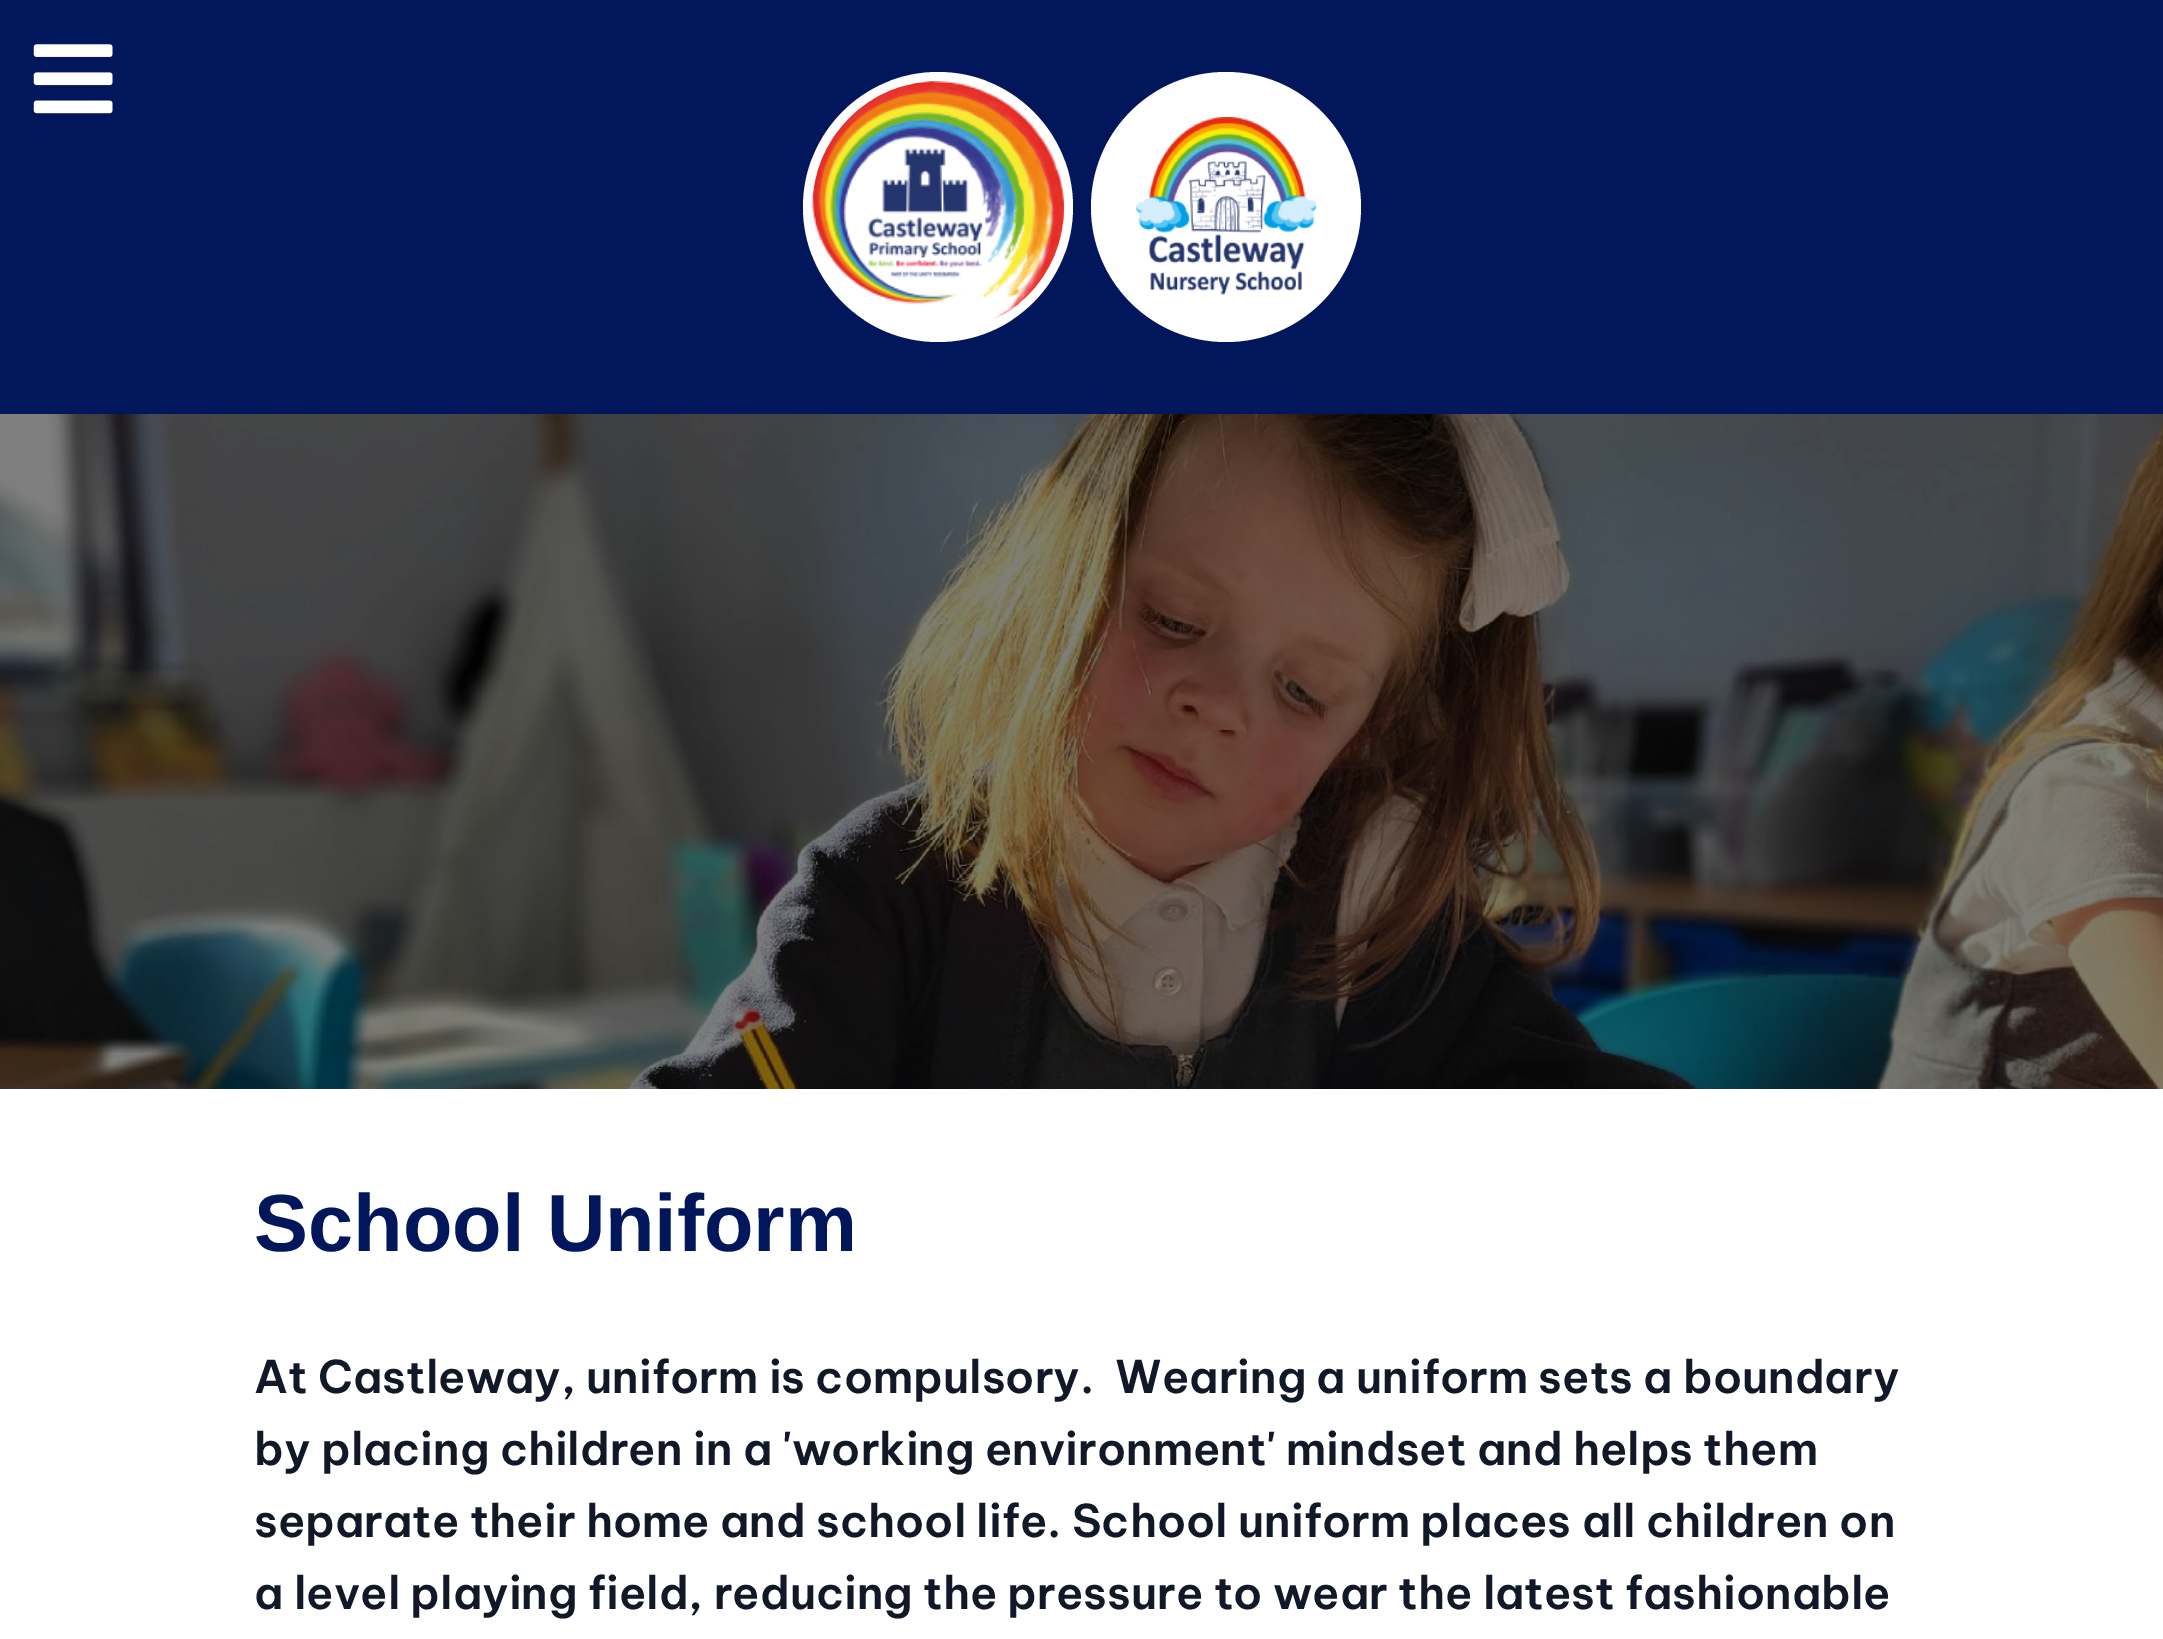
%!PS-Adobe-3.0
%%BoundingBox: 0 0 2163 1639
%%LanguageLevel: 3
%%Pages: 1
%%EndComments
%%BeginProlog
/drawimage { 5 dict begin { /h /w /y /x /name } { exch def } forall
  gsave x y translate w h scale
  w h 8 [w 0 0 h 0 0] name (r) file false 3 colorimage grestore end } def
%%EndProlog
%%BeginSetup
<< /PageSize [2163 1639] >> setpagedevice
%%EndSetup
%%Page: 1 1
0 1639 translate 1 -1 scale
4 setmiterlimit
1 setgray
0 0 2163 1639 rectfill
0.008 0.086 0.361 setrgbcolor
0 0 2163 414 rectfill
(images/1.raw) 33 44 80 70 drawimage
1 setgray
newpath 938 207 135 0 360 arc closepath fill
(images/2.raw) 812 81 253 239 drawimage
newpath 1226 207 135 0 360 arc closepath fill
(images/3.raw) 1136 117 181 178 drawimage
(images/4.raw) 0 414 2163 675 drawimage
/LiberationSans-Bold [81 0 0 -81 0 0] selectfont
0.008 0.086 0.361 setrgbcolor
254 1251 moveto (School Uniform) show
/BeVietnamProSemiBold-SemiBold [45 0 0 -45 0 0] selectfont
0.067 0.094 0.153 setrgbcolor
254 1393 moveto (At Castleway, uniform is compulsory.  Wearing a uniform sets a boundary) show
254 1465 moveto (by placing children in a 'working environment' mindset and helps them) show
254 1537 moveto (separate their home and school life. School uniform places all children on) show
254 1609 moveto (a level playing field, reducing the pressure to wear the latest fashionable) show
showpage
%%EOF
